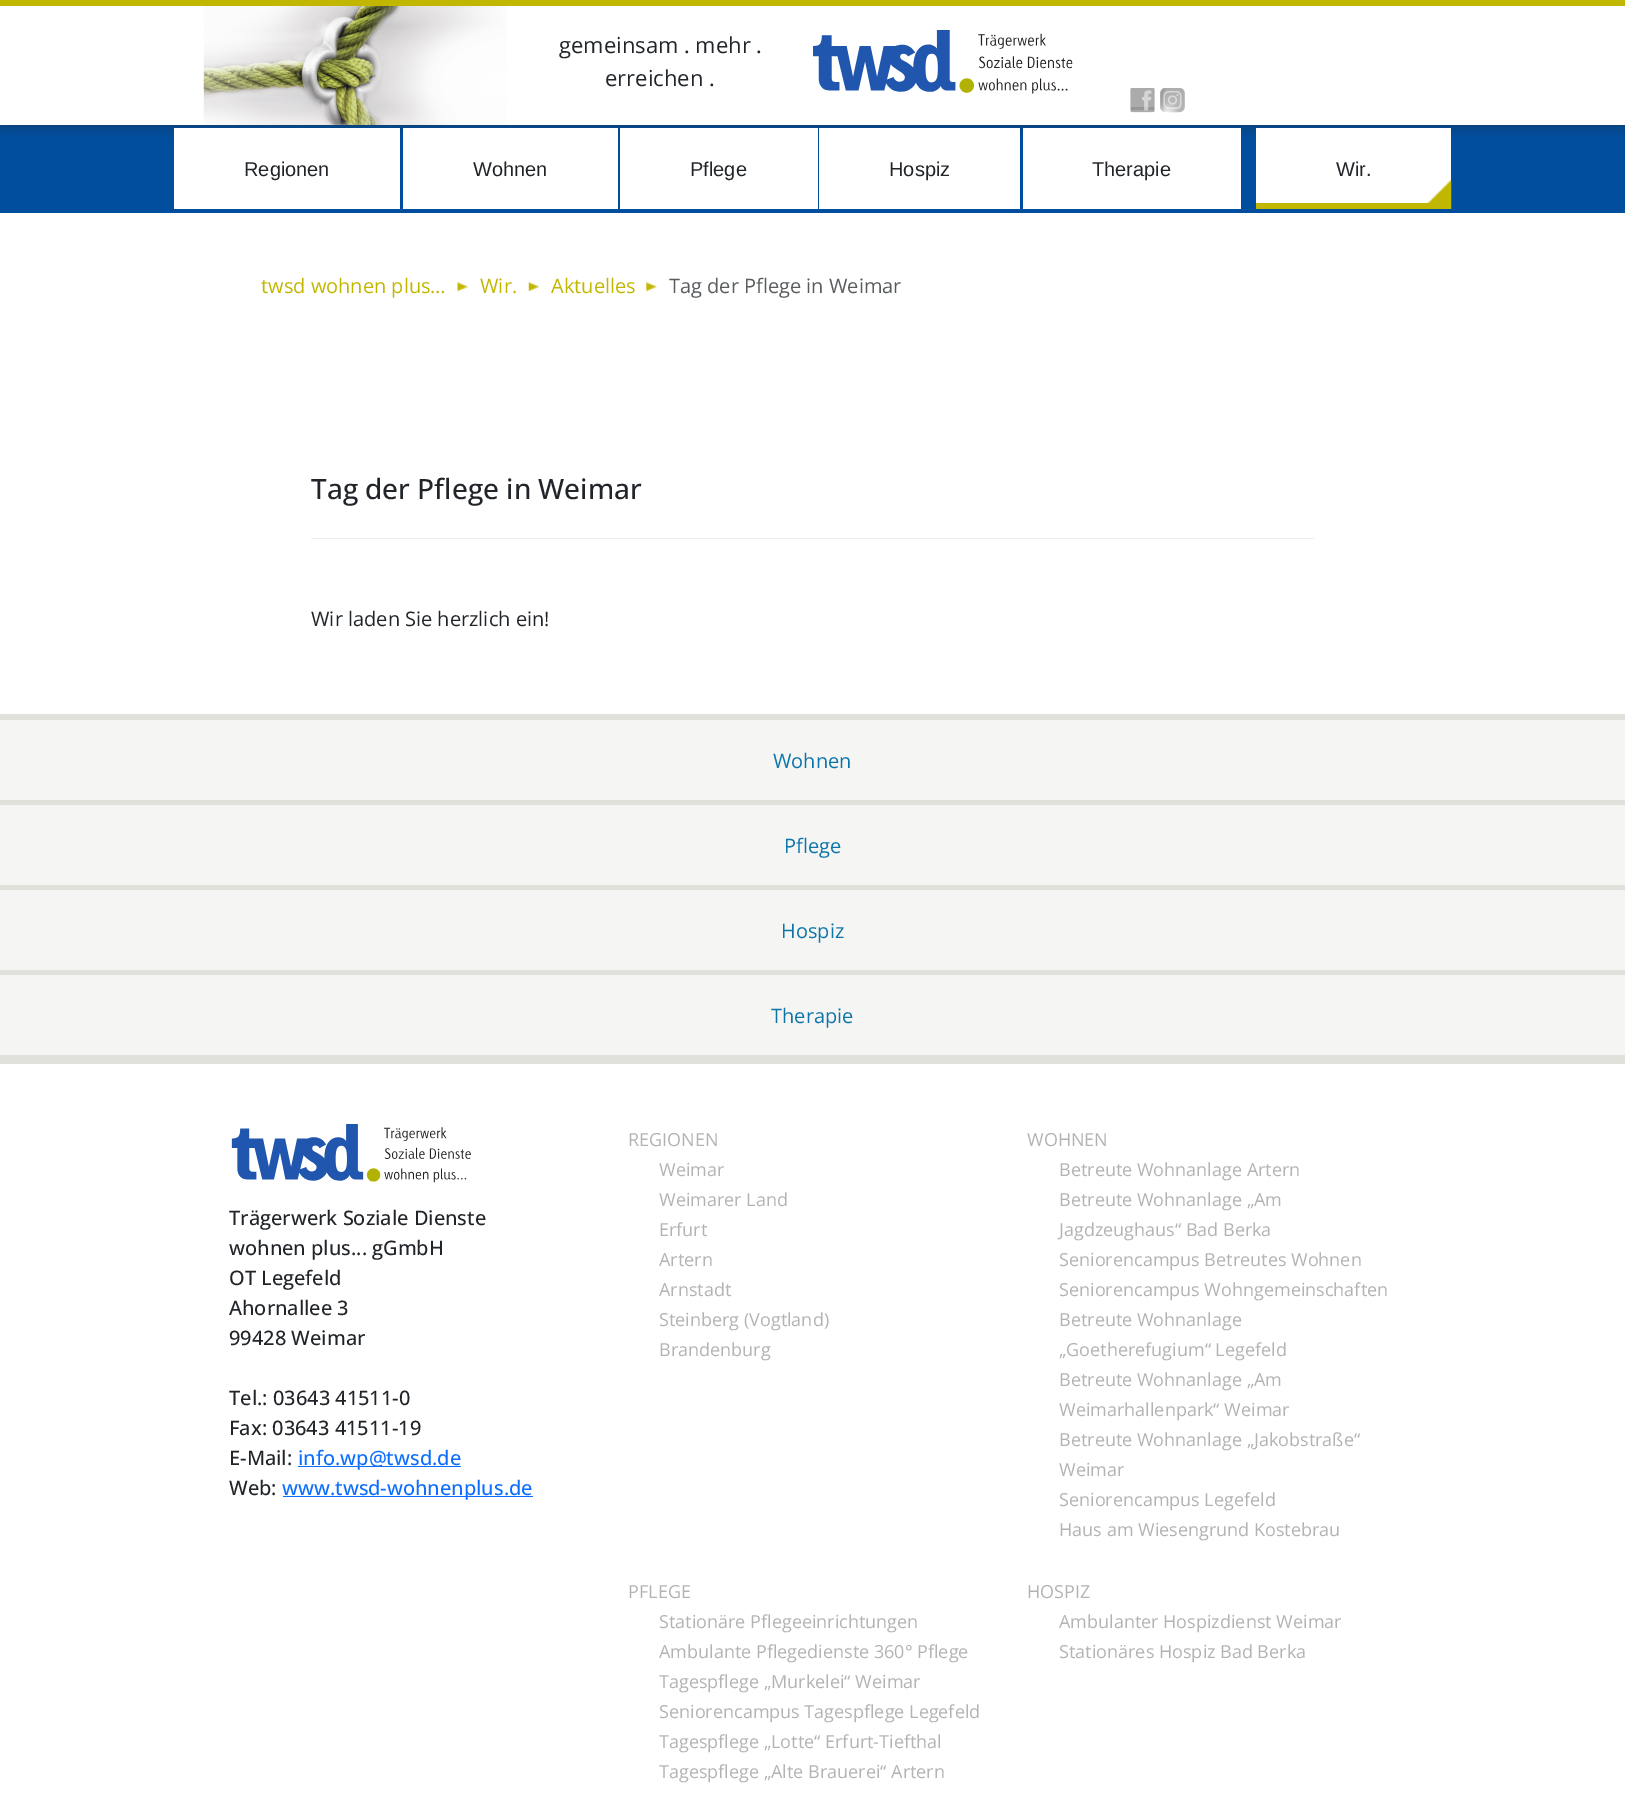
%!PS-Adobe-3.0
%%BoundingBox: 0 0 1625 1794
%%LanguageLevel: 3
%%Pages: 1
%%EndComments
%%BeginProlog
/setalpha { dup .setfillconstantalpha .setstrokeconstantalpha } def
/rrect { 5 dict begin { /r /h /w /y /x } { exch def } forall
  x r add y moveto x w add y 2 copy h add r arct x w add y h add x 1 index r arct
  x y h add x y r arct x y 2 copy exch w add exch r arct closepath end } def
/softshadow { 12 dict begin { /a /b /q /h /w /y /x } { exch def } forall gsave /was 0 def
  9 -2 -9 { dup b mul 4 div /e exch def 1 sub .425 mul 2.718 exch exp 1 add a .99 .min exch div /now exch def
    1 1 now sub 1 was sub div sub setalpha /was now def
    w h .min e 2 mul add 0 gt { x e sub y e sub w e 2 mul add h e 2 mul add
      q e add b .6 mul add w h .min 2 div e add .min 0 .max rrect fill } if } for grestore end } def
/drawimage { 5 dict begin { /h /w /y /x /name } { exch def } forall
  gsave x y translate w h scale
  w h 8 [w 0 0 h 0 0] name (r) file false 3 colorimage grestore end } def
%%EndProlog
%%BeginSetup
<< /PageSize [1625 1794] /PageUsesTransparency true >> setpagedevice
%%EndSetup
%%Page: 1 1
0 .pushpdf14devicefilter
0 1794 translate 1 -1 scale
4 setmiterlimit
1 setgray
0 0 1625 1794 rectfill
0.004 0.306 0.624 setrgbcolor
0 125 1625 88 rectfill
gsave
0 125 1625 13 rectclip
0.149 setgray
0 -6 1625 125 0 9.5 1 softshadow
grestore
0.757 0.714 0 setrgbcolor
0 0 1625 6 rectfill
(images/1.raw) 203 6 304 119 drawimage
(images/2.raw) 813 30 260 64 drawimage
(images/3.raw) 1130 88 25 25 drawimage
(images/4.raw) 1160 88 25 25 drawimage
1 setgray
174 128 226 81 rectfill
403 128 215 81 rectfill
620 128 198 81 rectfill
819 128 201 81 rectfill
1023 128 218 81 rectfill
1256 128 195 75 rectfill
(images/5.raw) 1427 180 25 29 drawimage
0.757 0.714 0 setrgbcolor
1256 203 195 6 rectfill
(images/6.raw) 457 282 12 10 drawimage
(images/7.raw) 528 282 12 10 drawimage
(images/8.raw) 646 282 11 10 drawimage
0.933 setgray
311 538 1003 1 rectfill
0.878 0.882 0.855 setrgbcolor
0 714 1625 6 rectfill
0 1055 1625 9 rectfill
0 800 1625 5 rectfill
0.961 0.961 0.953 setrgbcolor
0 720 1625 80 rectfill
0.878 0.882 0.855 setrgbcolor
0 885 1625 5 rectfill
0.961 0.961 0.953 setrgbcolor
0 805 1625 80 rectfill
0.878 0.882 0.855 setrgbcolor
0 970 1625 5 rectfill
0.961 0.961 0.953 setrgbcolor
0 890 1625 80 rectfill
0 975 1625 80 rectfill
(images/9.raw) 231 1124 240 59 drawimage
0.051 0.431 0.992 setrgbcolor
298 1466 163 1 rectfill
283 1496 250 1 rectfill
/OpenSans-Regular [22 0 0 -22 0 0] selectfont
0.129 0.145 0.161 setrgbcolor
559 53 moveto (gemeinsam . mehr .) show
605 86 moveto (erreichen .) show
/LiberationSans-Regular [20 0 0 -20 0 0] selectfont
244 176 moveto (Regionen) show
473 176 moveto (Wohnen) show
690 176 moveto (Pflege) show
889 176 moveto (Hospiz) show
1092 176 moveto (Therapie) show
1336 176 moveto (Wir.) show
/OpenSans-Regular [20 0 0 -20 0 0] selectfont
0.757 0.714 0 setrgbcolor
261 293 moveto (twsd wohnen plus…) show
480 293 moveto (Wir.) show
551 293 moveto (Aktuelles) show
0.349 0.361 0.373 setrgbcolor
669 293 moveto (Tag der Pflege in Weimar) show
/OpenSans-Medium [28 0 0 -28 0 0] selectfont
0.129 0.145 0.161 setrgbcolor
311 499 moveto (Tag der Pflege in Weimar) show
/OpenSans-Regular [20 0 0 -20 0 0] selectfont
311 626 moveto (Wir laden Sie herzlich ein!) show
0.051 0.459 0.663 setrgbcolor
773 768 moveto (Wohnen) show
784 853 moveto (Pflege) show
781 938 moveto (Hospiz) show
771 1023 moveto (Therapie) show
/OpenSans-Medium [20 0 0 -20 0 0] selectfont
0.129 0.145 0.161 setrgbcolor
229 1225 moveto (Trägerwerk Soziale Dienste) show
229 1255 moveto (wohnen plus... gGmbH) show
229 1285 moveto (OT Legefeld) show
229 1315 moveto (Ahornallee 3) show
229 1345 moveto (99428 Weimar) show
229 1405 moveto (Tel.: 03643 41511-0) show
229 1435 moveto (Fax: 03643 41511-19) show
229 1465 moveto (E-Mail:) show
0.051 0.431 0.992 setrgbcolor
298 1465 moveto (info.wp@twsd.de) show
0.129 0.145 0.161 setrgbcolor
229 1495 moveto (Web:) show
0.051 0.431 0.992 setrgbcolor
282 1495 moveto (www.twsd-wohnenplus.de) show
/OpenSans-Regular [18 0 0 -18 0 0] selectfont
0.702 setgray
628 1146 moveto (REGIONEN) show
659 1176 moveto (Weimar) show
659 1206 moveto (Weimarer Land) show
659 1236 moveto (Erfurt) show
659 1266 moveto (Artern) show
659 1296 moveto (Arnstadt) show
659 1326 moveto (Steinberg \(Vogtland\)) show
659 1356 moveto (Brandenburg) show
1027 1146 moveto (WOHNEN) show
1059 1176 moveto (Betreute Wohnanlage Artern) show
1059 1206 moveto (Betreute Wohnanlage „Am) show
1059 1236 moveto (Jagdzeughaus“ Bad Berka) show
1059 1266 moveto (Seniorencampus Betreutes Wohnen) show
1059 1296 moveto (Seniorencampus Wohngemeinschaften) show
1059 1326 moveto (Betreute Wohnanlage) show
1059 1356 moveto („Goetherefugium“ Legefeld) show
1059 1386 moveto (Betreute Wohnanlage „Am) show
1059 1416 moveto (Weimarhallenpark“ Weimar) show
1059 1446 moveto (Betreute Wohnanlage „Jakobstraße“) show
1059 1476 moveto (Weimar) show
1059 1506 moveto (Seniorencampus Legefeld) show
1059 1536 moveto (Haus am Wiesengrund Kostebrau) show
628 1598 moveto (PFLEGE) show
659 1628 moveto (Stationäre Pflegeeinrichtungen) show
659 1658 moveto (Ambulante Pflegedienste 360° Pflege) show
659 1688 moveto (Tagespflege „Murkelei“ Weimar) show
659 1718 moveto (Seniorencampus Tagespflege Legefeld) show
659 1748 moveto (Tagespflege „Lotte“ Erfurt-Tiefthal) show
659 1778 moveto (Tagespflege „Alte Brauerei“ Artern) show
1027 1598 moveto (HOSPIZ) show
1059 1628 moveto (Ambulanter Hospizdienst Weimar) show
1059 1658 moveto (Stationäres Hospiz Bad Berka) show
.poppdf14devicefilter showpage
%%EOF
